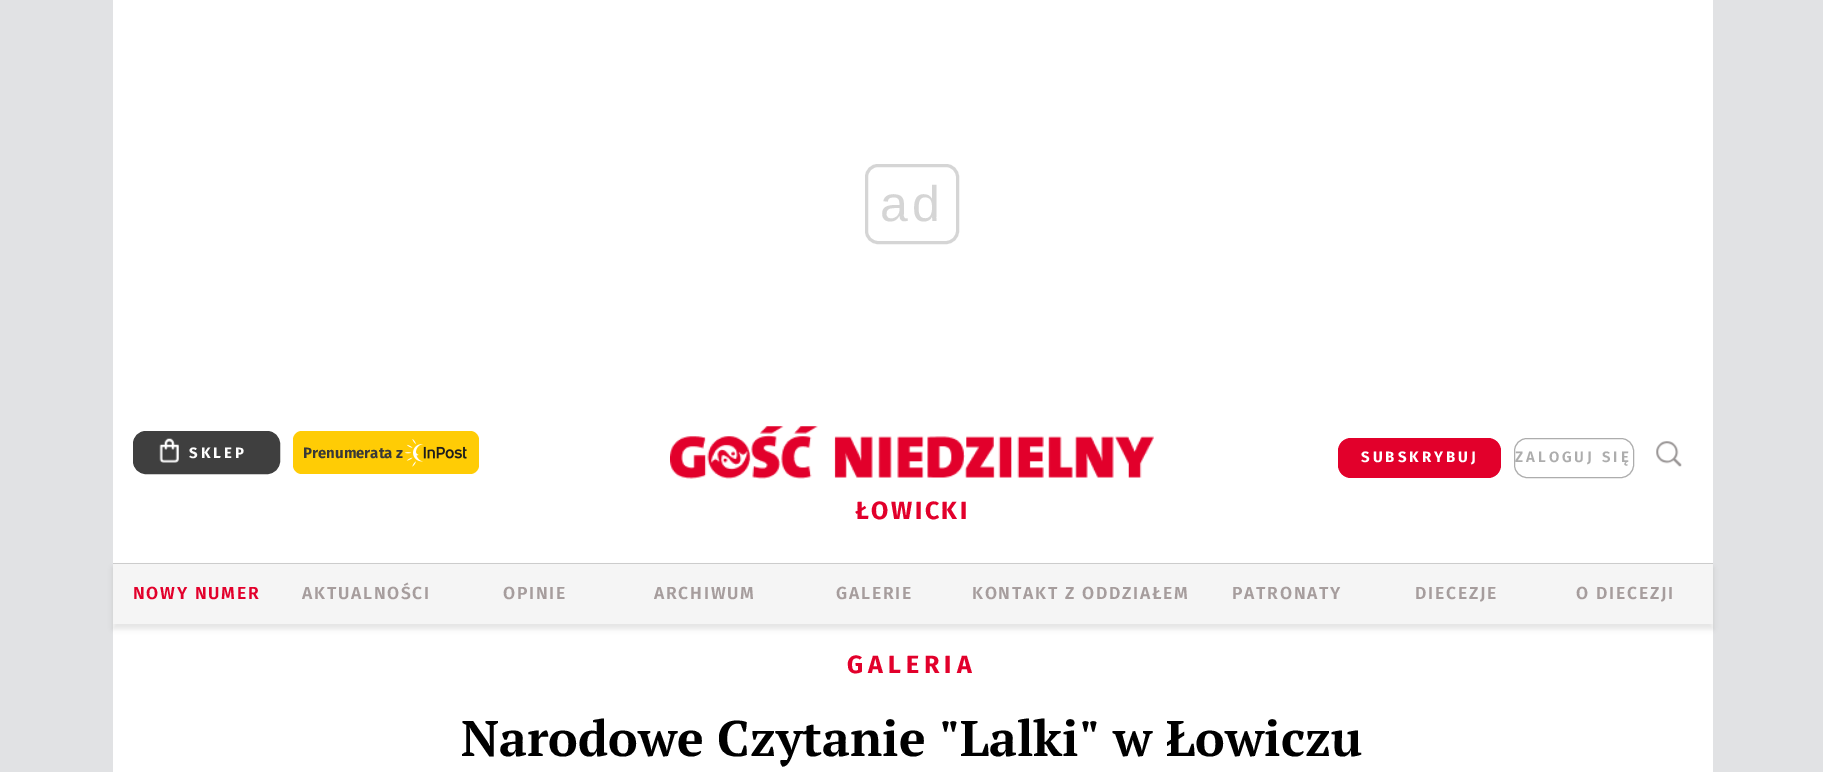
%!PS-Adobe-3.0
%%BoundingBox: 0 0 1823 772
%%LanguageLevel: 3
%%Pages: 1
%%EndComments
%%BeginProlog
/setalpha { dup .setfillconstantalpha .setstrokeconstantalpha } def
/rrect { 5 dict begin { /r /h /w /y /x } { exch def } forall
  x r add y moveto x w add y 2 copy h add r arct x w add y h add x 1 index r arct
  x y h add x y r arct x y 2 copy exch w add exch r arct closepath end } def
/softshadow { 12 dict begin { /a /b /q /h /w /y /x } { exch def } forall gsave /was 0 def
  9 -2 -9 { dup b mul 4 div /e exch def 1 sub .425 mul 2.718 exch exp 1 add a .99 .min exch div /now exch def
    1 1 now sub 1 was sub div sub setalpha /was now def
    w h .min e 2 mul add 0 gt { x e sub y e sub w e 2 mul add h e 2 mul add
      q e add b .6 mul add w h .min 2 div e add .min 0 .max rrect fill } if } for grestore end } def
/drawimage { 5 dict begin { /h /w /y /x /name } { exch def } forall
  gsave x y translate w h scale
  w h 8 [w 0 0 h 0 0] name (r) file false 3 colorimage grestore end } def
%%EndProlog
%%BeginSetup
<< /PageSize [1823 772] /PageUsesTransparency true >> setpagedevice
%%EndSetup
%%Page: 1 1
0 .pushpdf14devicefilter
0 772 translate 1 -1 scale
4 setmiterlimit
0.882 0.886 0.894 setrgbcolor
0 0 1823 772 rectfill
1 setgray
113 0 1600 406 rectfill
0.835 setgray
3 setlinewidth
866.5 165.5 91 77 11.5 rrect stroke
0.961 setgray
113 564 1600 60 rectfill
1 setgray
113 406 1600 157 rectfill
0.247 setgray
133.5 431.5 146 42 12.5 rrect gsave fill grestore
1 setlinewidth
stroke
(images/1.raw) 159 438 20 25 drawimage
1 0.8 0.02 setrgbcolor
293 431 186 43 9 rrect fill
(images/2.raw) 404 439 63 28 drawimage
0.886 0 0.169 setrgbcolor
1338 438 163 40 13 rrect fill
0.678 setgray
1514.5 438.5 119 39 12.5 rrect stroke
(images/3.raw) 1656 441 26 26 drawimage
(images/4.raw) 670 426 484 53 drawimage
1 setgray
113 624 1600 148 rectfill
gsave
newpath 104 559 moveto 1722 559 lineto 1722 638 lineto 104 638 lineto closepath 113 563 moveto 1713 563 lineto 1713 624 lineto 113 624 lineto closepath eoclip newpath
0 setgray
113 568 1600 61 0 2.5 0.1 softshadow
grestore
0.8 setgray
113 563 1600 1 rectfill
/LiberationSans-Regular [50 0 0 -50 0 0] selectfont
0.835 setgray
880 221 moveto 4 0 (ad) ashow
/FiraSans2-Bold [15 0 0 -15 0 0] selectfont
1 setgray
189 458 moveto 3 0 (SKLEP) ashow
/FiraSans-Bold [15 0 0 -15 0 0] selectfont
0.22 setgray
303 458 moveto (Prenumerata z) show
/FiraSans2-Bold [15 0 0 -15 0 0] selectfont
1 setgray
1361 462 moveto 3 0 (SUBSKRYBUJ) ashow
/FiraSans-SemiBold [15 0 0 -15 0 0] selectfont
0.678 setgray
1515 462 moveto 3 0 (ZALOGUJ SIĘ) ashow
/FiraSans2-Bold [25 0 0 -25 0 0] selectfont
0.886 0 0.169 setrgbcolor
855 519 moveto 2.5 0 (ŁOWICKI) ashow
/FiraSans-SemiBold [17.5 0 0 -17.5 0 0] selectfont
133 599 moveto 1.75 0 (NOWY NUMER) ashow
0.651 0.616 0.616 setrgbcolor
302 599 moveto 1.75 0 (AKTUALNOŚCI) ashow
503 599 moveto 1.75 0 (OPINIE) ashow
654 599 moveto 1.75 0 (ARCHIWUM) ashow
836 599 moveto 1.75 0 (GALERIE) ashow
972 599 moveto 1.75 0 (KONTAKT Z ODDZIAŁEM) ashow
1232 599 moveto 1.75 0 (PATRONATY) ashow
1415 599 moveto 1.75 0 (DIECEZJE) ashow
1576 599 moveto 1.75 0 (O DIECEZJI) ashow
/FiraSans-Bold [25 0 0 -25 0 0] selectfont
0.886 0 0.169 setrgbcolor
847 673 moveto 5 0 (GALERIA) ashow
/PTSerif-Bold [50 0 0 -50 0 0] selectfont
0 setgray
461 756 moveto (Narodowe Czytanie "Lalki" w Łowiczu) show
.poppdf14devicefilter showpage
%%EOF
